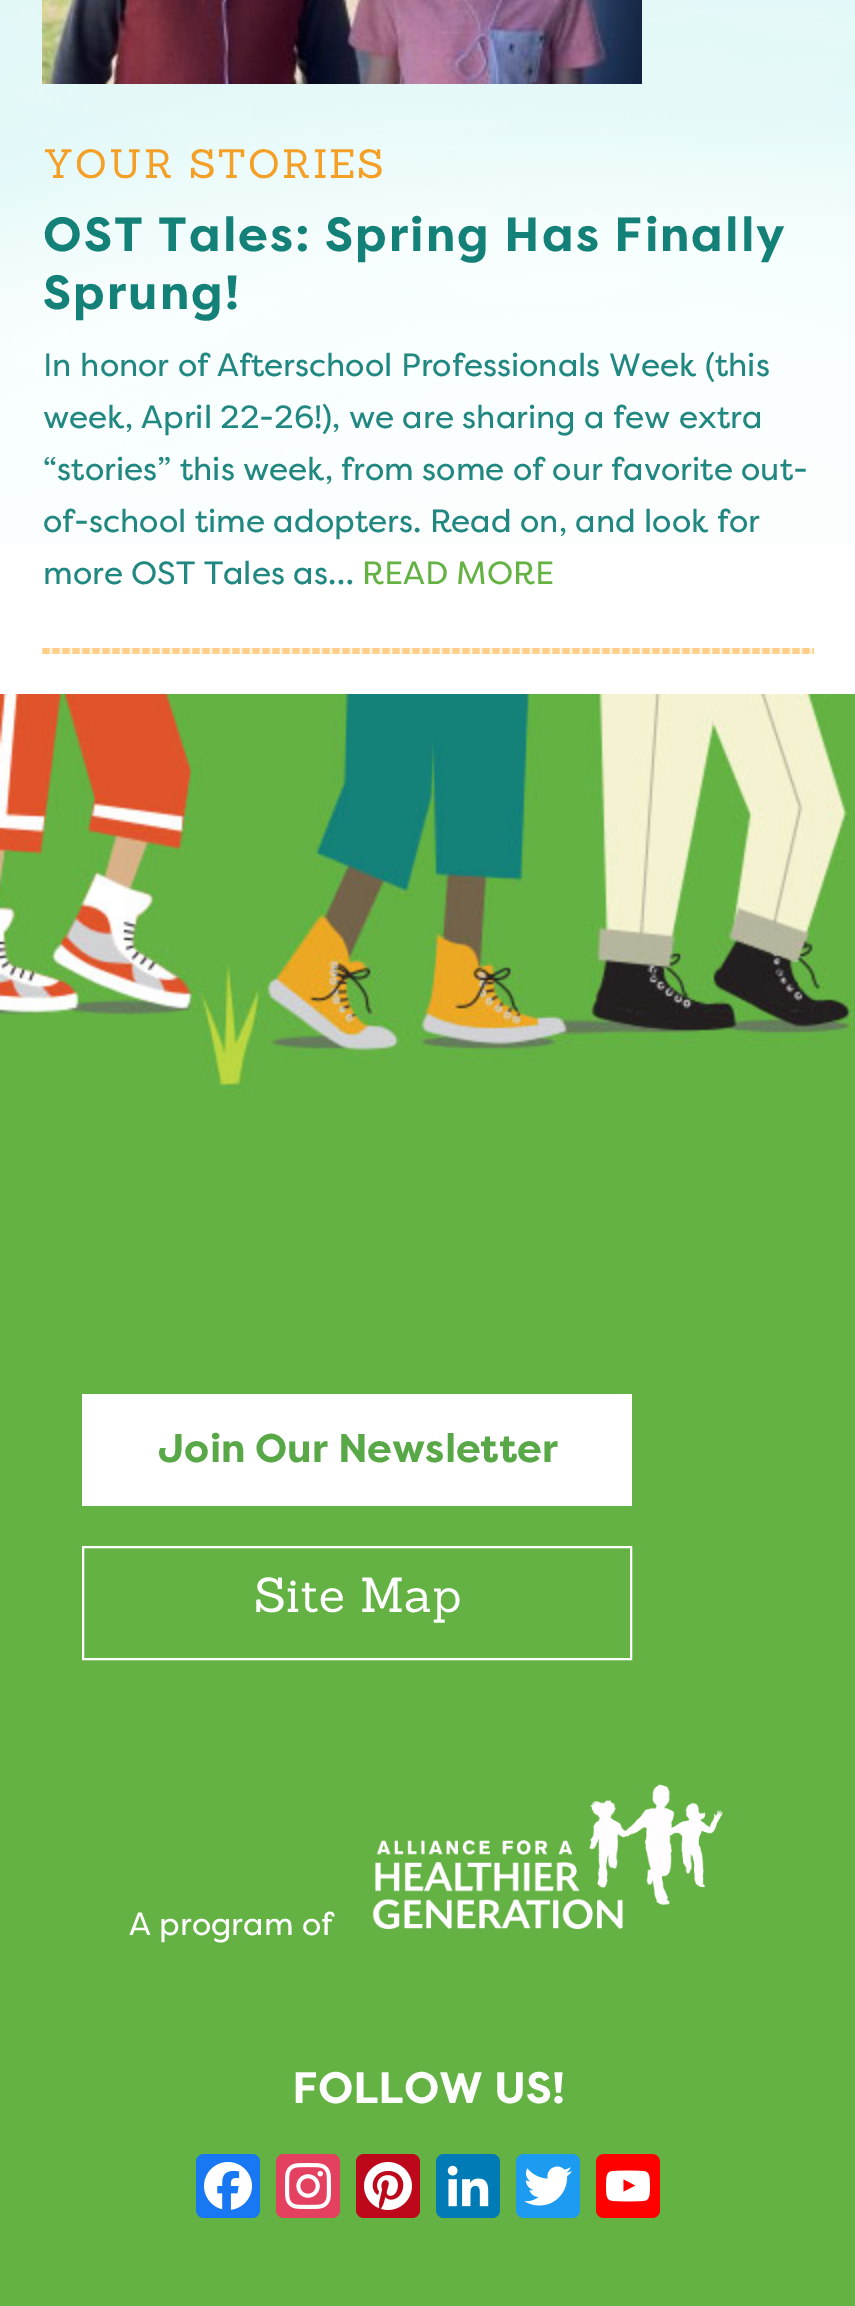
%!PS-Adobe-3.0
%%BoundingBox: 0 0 855 2306
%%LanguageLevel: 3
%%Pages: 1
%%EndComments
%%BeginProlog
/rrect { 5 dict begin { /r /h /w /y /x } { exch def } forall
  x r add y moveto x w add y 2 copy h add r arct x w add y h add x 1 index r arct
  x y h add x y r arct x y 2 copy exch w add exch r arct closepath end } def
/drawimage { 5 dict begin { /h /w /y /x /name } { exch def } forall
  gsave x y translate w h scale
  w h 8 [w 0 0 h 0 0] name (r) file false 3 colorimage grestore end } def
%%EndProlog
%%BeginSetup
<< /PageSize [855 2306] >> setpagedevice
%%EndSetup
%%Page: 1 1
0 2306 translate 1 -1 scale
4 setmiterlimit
1 setgray
0 0 855 2306 rectfill
(images/1.raw) 0 0 855 543 drawimage
(images/2.raw) 42 648 772 6 drawimage
(images/3.raw) 42 0 600 84 drawimage
0.392 0.698 0.263 setrgbcolor
0 1094 855 1212 rectfill
(images/4.raw) 0 694 855 400 drawimage
1 setgray
82 1394 550 112 rectfill
2 setlinewidth
83 1547 548 112 rectstroke
(images/5.raw) 372 1784 351 145 drawimage
0.094 0.467 0.949 setrgbcolor
196 2154 64 64 8 rrect fill
(images/6.raw) 204 2162 48 48 drawimage
0.894 0.251 0.373 setrgbcolor
276 2154 64 64 8 rrect fill
(images/7.raw) 285 2163 46 46 drawimage
0.741 0.031 0.11 setrgbcolor
356 2154 64 64 8 rrect fill
(images/8.raw) 364 2162 48 48 drawimage
0 0.482 0.71 setrgbcolor
436 2154 64 64 8 rrect fill
(images/9.raw) 447 2165 42 42 drawimage
0.114 0.608 0.941 setrgbcolor
516 2154 64 64 8 rrect fill
(images/10.raw) 524 2166 48 40 drawimage
1 0 0 setrgbcolor
596 2154 64 64 8 rrect fill
(images/11.raw) 606 2170 44 32 drawimage
/Sanchez-Regular [40 0 0 -40 0 0] selectfont
0.957 0.624 0.145 setrgbcolor
43 178 moveto 2 0 (YOUR STORIES) ashow
/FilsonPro-Bold [48 0 0 -48 0 0] selectfont
0.078 0.506 0.475 setrgbcolor
43 251 moveto 2 0 (OST Tales: Spring Has Finally) ashow
43 309 moveto 2 0 (Sprung!) ashow
/FilsonPro-Regular [32 0 0 -32 0 0] selectfont
0.125 0.529 0.506 setrgbcolor
43 376 moveto (In honor of Afterschool Professionals Week \(this) show
43 428 moveto (week, April 22-26!\), we are sharing a few extra) show
43 480 moveto (“stories” this week, from some of our favorite out-) show
43 532 moveto (of-school time adopters. Read on, and look for) show
43 584 moveto (more OST Tales as…) show
0.392 0.698 0.263 setrgbcolor
362 584 moveto (READ MORE) show
/FilsonPro-Bold [40 0 0 -40 0 0] selectfont
0.345 0.659 0.278 setrgbcolor
158 1462 moveto (Join Our Newsletter) show
/Sanchez-Regular [48 0 0 -48 0 0] selectfont
1 setgray
254 1612 moveto (Site Map) show
/FilsonPro-Regular [32 0 0 -32 0 0] selectfont
129 1935 moveto (A program of) show
/FilsonPro-Bold [44 0 0 -44 0 0] selectfont
292 2103 moveto (FOLLOW US!) show
showpage
%%EOF
